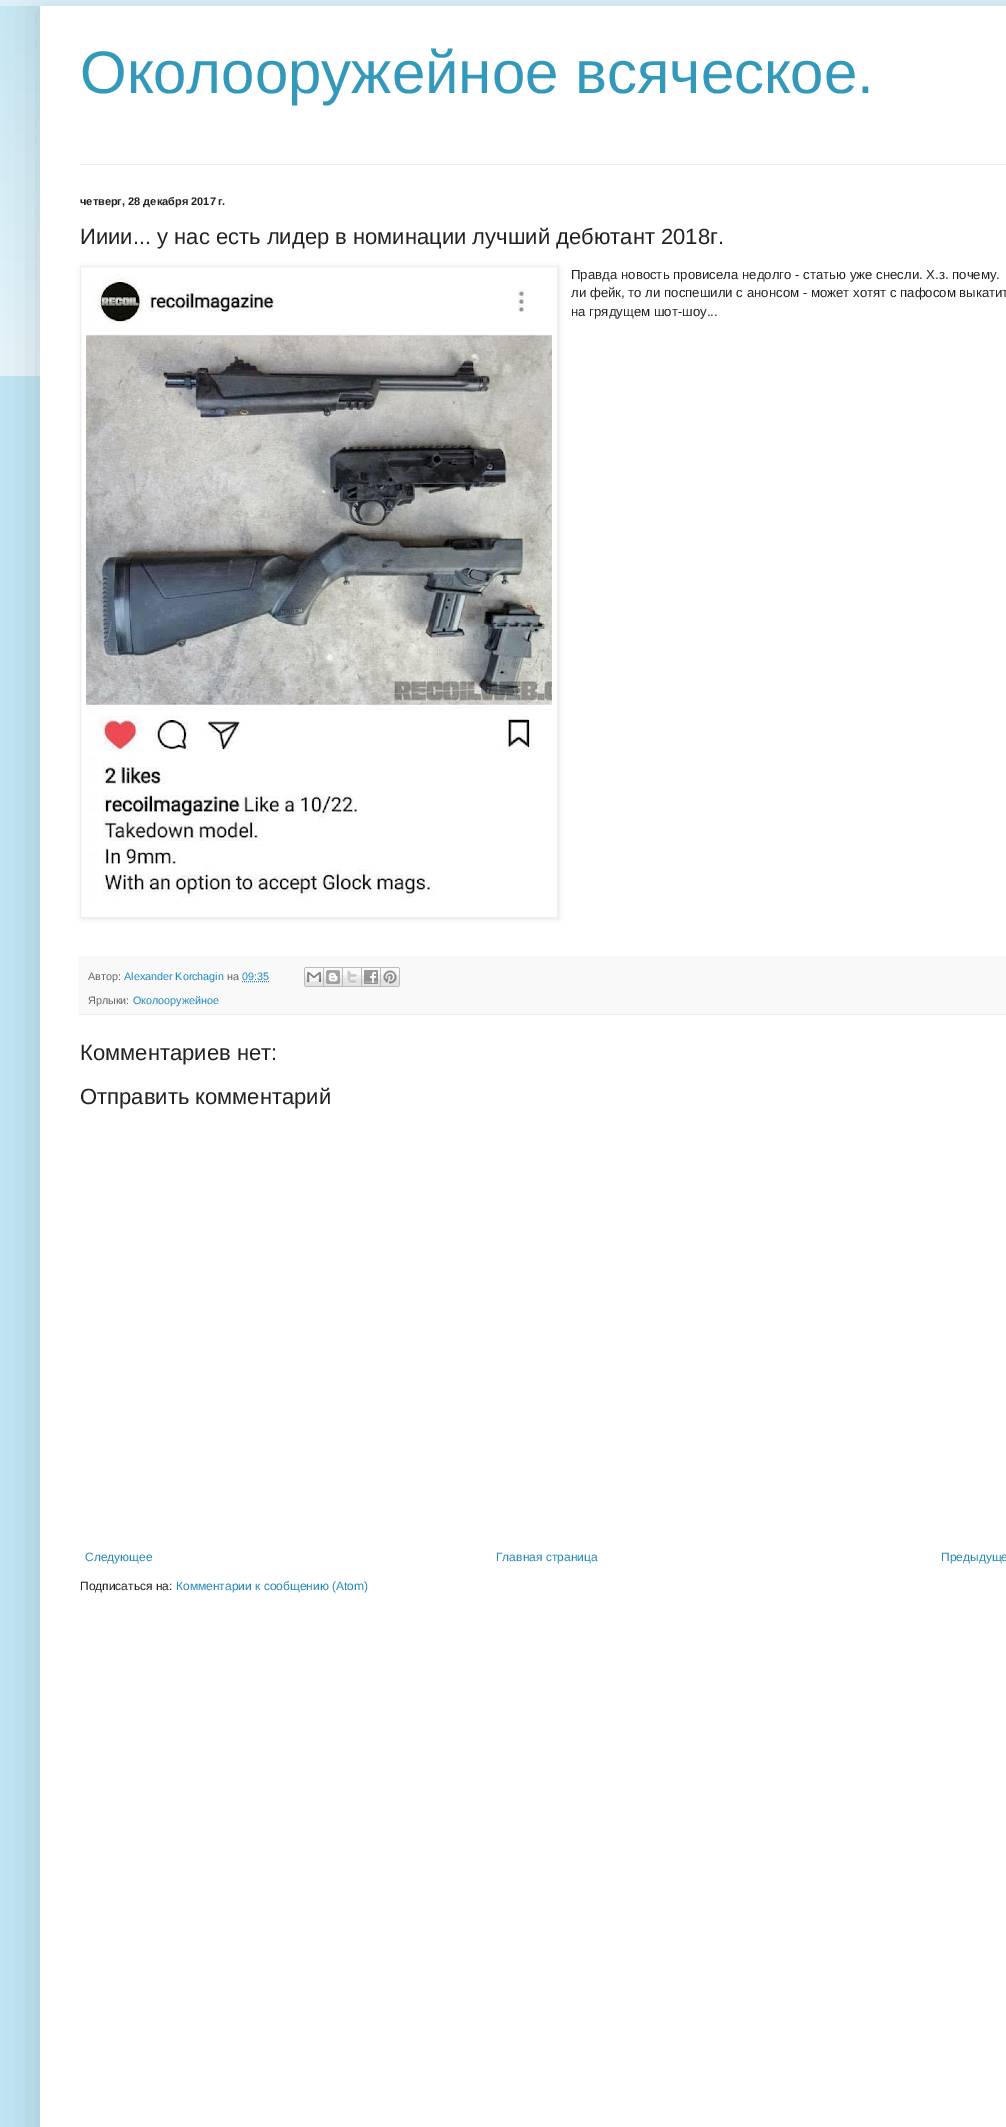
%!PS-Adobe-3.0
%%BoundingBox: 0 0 1006 2127
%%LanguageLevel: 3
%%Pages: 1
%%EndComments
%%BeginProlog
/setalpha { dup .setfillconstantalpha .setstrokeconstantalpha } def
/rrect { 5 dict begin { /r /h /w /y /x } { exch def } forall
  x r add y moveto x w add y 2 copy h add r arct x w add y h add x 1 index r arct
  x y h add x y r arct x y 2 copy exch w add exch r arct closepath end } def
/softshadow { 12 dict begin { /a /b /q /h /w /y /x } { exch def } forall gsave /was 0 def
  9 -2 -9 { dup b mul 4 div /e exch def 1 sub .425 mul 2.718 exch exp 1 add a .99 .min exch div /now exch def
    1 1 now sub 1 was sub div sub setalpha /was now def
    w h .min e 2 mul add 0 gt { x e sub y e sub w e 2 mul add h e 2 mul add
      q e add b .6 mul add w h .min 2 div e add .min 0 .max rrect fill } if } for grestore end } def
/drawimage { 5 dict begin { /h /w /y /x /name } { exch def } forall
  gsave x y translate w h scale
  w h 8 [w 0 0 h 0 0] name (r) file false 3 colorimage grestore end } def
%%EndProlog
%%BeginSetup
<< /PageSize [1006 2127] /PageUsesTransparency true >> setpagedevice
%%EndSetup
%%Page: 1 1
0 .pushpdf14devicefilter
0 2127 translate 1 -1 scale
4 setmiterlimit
0.757 0.898 0.949 setrgbcolor
0 0 1006 2127 rectfill
(images/1.raw) 0 0 1006 376 drawimage
0 setgray
40 6 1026 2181 0 20 0.15 softshadow
0.4 setalpha
1 setgray
0 0 1006 6 rectfill
1 setalpha
40 6 966 2121 rectfill
0.933 setgray
80 164 926 1 rectfill
gsave
newpath 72 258 moveto 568 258 lineto 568 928 lineto 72 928 lineto closepath 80 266 moveto 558 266 lineto 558 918 lineto 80 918 lineto closepath eoclip newpath
0 setgray
81 267 478 652 0 2.5 0.1 softshadow
grestore
80.5 266.5 477 651 rectstroke
(images/2.raw) 86 274 466 624 drawimage
0.976 setgray
78 956 928 58 rectfill
0.933 setgray
78 1014 928 1 rectfill
0.133 0.533 0.733 setrgbcolor
[1 1] 0 setdash
newpath 242 981.5 moveto 269 981.5 lineto stroke
(images/3.raw) 304 967 20 20 drawimage
(images/4.raw) 324 967 19 20 drawimage
(images/5.raw) 343 967 19 20 drawimage
(images/6.raw) 362 967 19 20 drawimage
(images/7.raw) 381 967 19 20 drawimage
/LiberationSans-Regular [60 0 0 -60 0 0] selectfont
0.2 0.6 0.733 setrgbcolor
80 93 moveto (Околооружейное всяческое.) show
/LiberationSans-Bold [11 0 0 -11 0 0] selectfont
0.133 setgray
80 205 moveto (четверг, 28 декабря 2017 г.) show
/LiberationSans-Regular [22 0 0 -22 0 0] selectfont
80 244 moveto (Ииии... у нас есть лидер в номинации лучший дебютант 2018г.) show
/LiberationSans-Regular [13.2 0 0 -13.2 0 0] selectfont
571 279 moveto (Правда новость провисела недолго - статью уже снесли. Х.з. почему.) show
571 297 moveto (ли фейк, то ли поспешили с анонсом - может хотят с пафосом выкатит) show
571 316 moveto (на грядущем шот-шоу...) show
/LiberationSans-Regular [10.75 0 0 -10.75 0 0] selectfont
0.4 setgray
88 980 moveto (Автор:) show
0.133 0.533 0.733 setrgbcolor
124 980 moveto (Alexander Korchagin) show
0.4 setgray
227 980 moveto (на) show
0.133 0.533 0.733 setrgbcolor
242 980 moveto (09:35) show
0.4 setgray
88 1004 moveto (Ярлыки:) show
0.133 0.533 0.733 setrgbcolor
133 1004 moveto (Околооружейное) show
/LiberationSans-Regular [22 0 0 -22 0 0] selectfont
0.133 setgray
80 1060 moveto (Комментариев нет:) show
80 1104 moveto (Отправить комментарий) show
/LiberationSans-Regular [12 0 0 -12 0 0] selectfont
0.133 0.533 0.733 setrgbcolor
85 1561 moveto (Следующее) show
496 1561 moveto (Главная страница) show
941 1561 moveto (Предыдуще) show
0.133 setgray
80 1590 moveto (Подписаться на:) show
0.133 0.533 0.733 setrgbcolor
176 1590 moveto (Комментарии к сообщению \(Atom\)) show
.poppdf14devicefilter showpage
%%EOF
